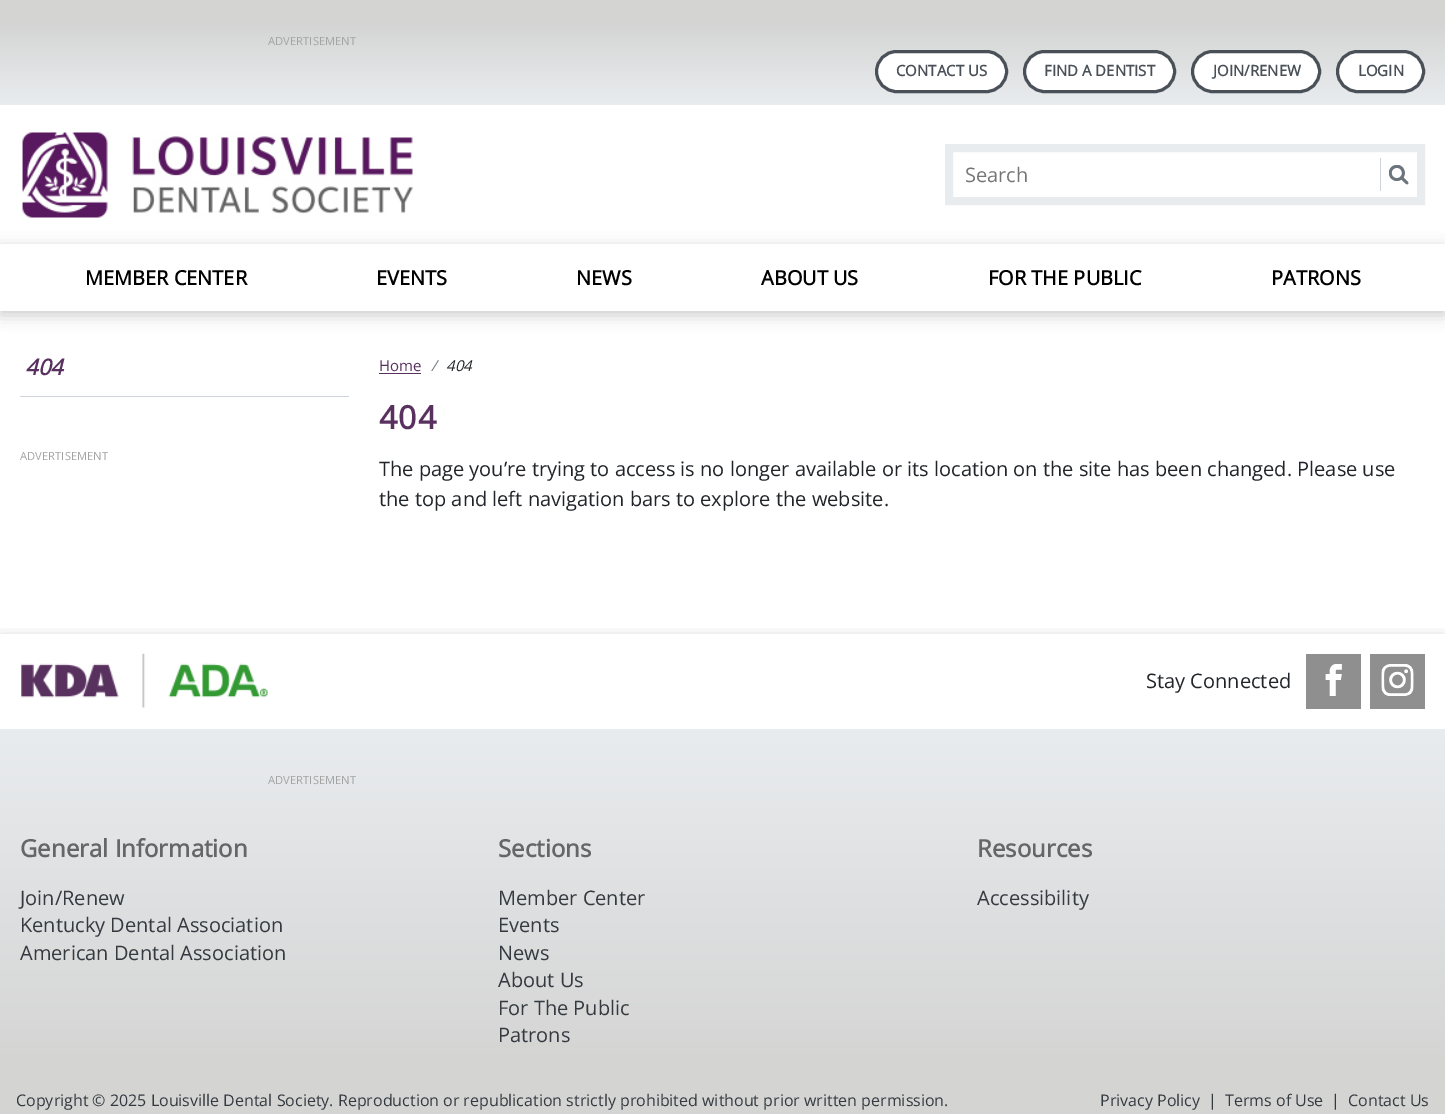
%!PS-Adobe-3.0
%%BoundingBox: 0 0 1445 1114
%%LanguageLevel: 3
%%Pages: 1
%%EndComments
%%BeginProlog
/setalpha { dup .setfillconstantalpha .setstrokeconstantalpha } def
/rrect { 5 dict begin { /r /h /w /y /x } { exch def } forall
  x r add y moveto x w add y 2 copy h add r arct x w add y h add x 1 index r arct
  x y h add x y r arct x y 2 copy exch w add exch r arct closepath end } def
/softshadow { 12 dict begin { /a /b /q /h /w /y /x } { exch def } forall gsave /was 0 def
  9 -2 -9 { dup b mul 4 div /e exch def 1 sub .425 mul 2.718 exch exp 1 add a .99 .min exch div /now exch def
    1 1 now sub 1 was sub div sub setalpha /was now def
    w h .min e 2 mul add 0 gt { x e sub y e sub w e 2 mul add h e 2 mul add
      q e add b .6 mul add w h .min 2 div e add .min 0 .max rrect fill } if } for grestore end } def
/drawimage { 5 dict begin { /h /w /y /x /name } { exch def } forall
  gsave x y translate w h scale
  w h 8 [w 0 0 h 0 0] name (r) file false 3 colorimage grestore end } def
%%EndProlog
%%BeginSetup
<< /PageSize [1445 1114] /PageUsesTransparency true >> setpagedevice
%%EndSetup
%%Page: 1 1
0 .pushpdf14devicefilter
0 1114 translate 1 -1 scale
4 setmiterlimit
1 setgray
0 0 1445 1114 rectfill
gsave newpath 0 0 moveto 1445 0 lineto 1445 105 lineto 0 105 lineto closepath clip newpath
<< /ShadingType 2 /ColorSpace /DeviceRGB /Coords [723 0 723 105] /Extend [true true] /Function << /FunctionType 3 /Domain [0 1] /Functions [<< /FunctionType 2 /Domain [0 1] /C0 [0.831 0.831 0.827] /C1 [0.831 0.831 0.827] /N 1 >> << /FunctionType 2 /Domain [0 1] /C0 [0.831 0.831 0.827] /C1 [0.914 0.925 0.937] /N 1 >>] /Bounds [0.2] /Encode [0 1 0 1] >> >> shfill grestore
876.5 51.5 130 40 20 rrect gsave fill grestore
0.286 0.314 0.341 setrgbcolor
3 setlinewidth
stroke
1 setgray
1024.5 51.5 150 40 20 rrect gsave fill grestore
0.286 0.314 0.341 setrgbcolor
stroke
1 setgray
1192.5 51.5 127 40 20 rrect gsave fill grestore
0.286 0.314 0.341 setrgbcolor
stroke
1 setgray
1337.5 51.5 86 40 20 rrect gsave fill grestore
0.286 0.314 0.341 setrgbcolor
stroke
(images/1.raw) 22 132 391 86 drawimage
0.914 0.925 0.937 setrgbcolor
8 setlinewidth
949 148 472 53 rectstroke
0.808 0.831 0.855 setrgbcolor
1380 158 1 33 rectfill
(images/2.raw) 1389 165 20 20 drawimage
gsave
newpath 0 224 moveto 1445 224 lineto 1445 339 lineto 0 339 lineto closepath 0 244 moveto 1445 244 lineto 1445 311 lineto 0 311 lineto closepath eoclip newpath
0 setgray
0 248 1445 67 0 7.5 0.2 softshadow
grestore
20 396 329 1 rectfill
0.349 0.192 0.373 setrgbcolor
379 373 42 1 rectfill
gsave
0 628 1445 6 rectclip
0 setgray
0 638 1445 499 0 7.5 0.2 softshadow
grestore
(images/3.raw) 21 653 247 55 drawimage
0.561 setgray
1306 654 55 55 rectfill
(images/4.raw) 1325 664 17 32 drawimage
1370 654 55 55 rectfill
(images/5.raw) 1381 664 33 32 drawimage
gsave newpath 0 729 moveto 1445 729 lineto 1445 1114 lineto 0 1114 lineto closepath clip newpath
<< /ShadingType 2 /ColorSpace /DeviceRGB /Coords [723 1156 723 729] /Extend [true true] /Function << /FunctionType 3 /Domain [0 1] /Functions [<< /FunctionType 2 /Domain [0 1] /C0 [0.831 0.831 0.827] /C1 [0.831 0.831 0.827] /N 1 >> << /FunctionType 2 /Domain [0 1] /C0 [0.831 0.831 0.827] /C1 [0.914 0.925 0.937] /N 1 >>] /Bounds [0.2] /Encode [0 1 0 1] >> >> shfill grestore
/OpenSans-Regular [11.25 0 0 -11.25 0 0] selectfont
0.639 setgray
268 45 moveto (ADVERTISEMENT) show
/OpenSans-Bold [15 0 0 -15 0 0] selectfont
0.286 0.314 0.341 setrgbcolor
896 76 moveto (CONTACT US) show
1044 76 moveto (FIND A DENTIST) show
1213 76 moveto (JOIN/RENEW) show
1358 76 moveto (LOGIN) show
/OpenSans-Regular [20 0 0 -20 0 0] selectfont
0.459 setgray
965 182 moveto (Search) show
/OpenSans-Bold [20 0 0 -20 0 0] selectfont
0 setgray
85 285 moveto (MEMBER CENTER) show
376 285 moveto (EVENTS) show
576 285 moveto (NEWS) show
761 285 moveto (ABOUT US) show
988 285 moveto (FOR THE PUBLIC) show
1271 285 moveto (PATRONS) show
/OpenSans-BoldItalic [22 0 0 -22 0 0] selectfont
0.349 0.192 0.373 setrgbcolor
25 375 moveto (404) show
/OpenSans-Regular [11.25 0 0 -11.25 0 0] selectfont
0.639 setgray
20 460 moveto (ADVERTISEMENT) show
/OpenSans-Regular [15 0 0 -15 0 0] selectfont
0.349 0.192 0.373 setrgbcolor
379 371 moveto (Home) show
/OpenSans-Italic [15 0 0 -15 0 0] selectfont
0.424 0.459 0.49 setrgbcolor
431 371 moveto (/) show
0.129 0.145 0.161 setrgbcolor
446 371 moveto (404) show
/OpenSans-Bold [32 0 0 -32 0 0] selectfont
0.349 0.192 0.373 setrgbcolor
379 429 moveto 1 0 (404) ashow
/OpenSans-Regular [20 0 0 -20 0 0] selectfont
0.129 0.145 0.161 setrgbcolor
379 476 moveto (The page you’re trying to access is no longer available or its location on the site has been changed. Please use) show
379 506 moveto (the top and left navigation bars to explore the website.) show
1146 688 moveto (Stay Connected) show
/OpenSans-Regular [11.25 0 0 -11.25 0 0] selectfont
0.639 setgray
268 784 moveto (ADVERTISEMENT) show
/OpenSans-Bold [24 0 0 -24 0 0] selectfont
0.4 setgray
20 857 moveto (General Information) show
/OpenSans-Regular [20 0 0 -20 0 0] selectfont
0.204 0.227 0.251 setrgbcolor
20 905 moveto (Join/Renew) show
20 932 moveto (Kentucky Dental Association) show
20 960 moveto (American Dental Association) show
/OpenSans-Bold [24 0 0 -24 0 0] selectfont
0.4 setgray
498 857 moveto (Sections) show
/OpenSans-Regular [20 0 0 -20 0 0] selectfont
0.204 0.227 0.251 setrgbcolor
498 905 moveto (Member Center) show
498 932 moveto (Events) show
498 960 moveto (News) show
498 987 moveto (About Us) show
498 1015 moveto (For The Public) show
498 1042 moveto (Patrons) show
/OpenSans-Bold [24 0 0 -24 0 0] selectfont
0.4 setgray
977 857 moveto (Resources) show
/OpenSans-Regular [20 0 0 -20 0 0] selectfont
0.204 0.227 0.251 setrgbcolor
977 905 moveto (Accessibility) show
/OpenSans-Regular [16 0 0 -16 0 0] selectfont
16 1106 moveto (Copyright © 2025 Louisville Dental Society. Reproduction or republication strictly prohibited without prior written permission.) show
1100 1106 moveto (Privacy Policy) show
1208 1106 moveto (|) show
1225 1106 moveto (Terms of Use) show
1331 1106 moveto (|) show
1348 1106 moveto (Contact Us) show
.poppdf14devicefilter showpage
%%EOF
